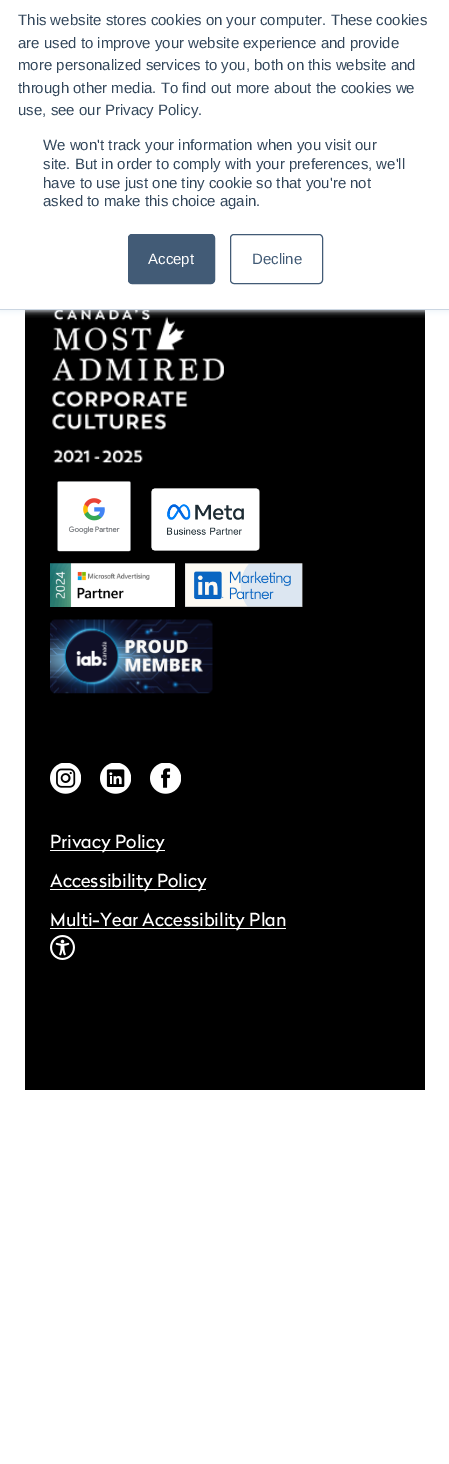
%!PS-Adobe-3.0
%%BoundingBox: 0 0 449 1464
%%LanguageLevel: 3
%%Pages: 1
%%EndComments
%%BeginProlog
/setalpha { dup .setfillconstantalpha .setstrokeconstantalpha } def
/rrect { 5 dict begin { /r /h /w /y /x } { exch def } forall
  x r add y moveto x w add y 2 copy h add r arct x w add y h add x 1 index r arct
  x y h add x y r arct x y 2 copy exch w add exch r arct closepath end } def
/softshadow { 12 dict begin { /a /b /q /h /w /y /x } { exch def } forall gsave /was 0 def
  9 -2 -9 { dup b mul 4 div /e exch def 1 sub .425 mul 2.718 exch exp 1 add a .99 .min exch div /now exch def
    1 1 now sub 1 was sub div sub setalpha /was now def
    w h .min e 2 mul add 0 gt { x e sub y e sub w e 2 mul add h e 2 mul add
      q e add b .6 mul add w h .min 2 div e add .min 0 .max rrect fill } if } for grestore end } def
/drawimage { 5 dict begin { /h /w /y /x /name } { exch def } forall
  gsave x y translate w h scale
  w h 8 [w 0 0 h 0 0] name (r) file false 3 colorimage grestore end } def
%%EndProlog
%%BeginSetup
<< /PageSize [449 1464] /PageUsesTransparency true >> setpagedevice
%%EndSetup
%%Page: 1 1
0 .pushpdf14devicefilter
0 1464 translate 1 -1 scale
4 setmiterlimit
1 setgray
0 0 449 1464 rectfill
0 setgray
25 310 400 780 rectfill
(images/1.raw) 52 310 172 153 drawimage
0.918 0.941 0.965 setrgbcolor
0 -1 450 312 0 3 1 softshadow
1 setgray
0 0 449 309 rectfill
0.796 0.839 0.886 setrgbcolor
0 309 449 1 rectfill
0.259 0.357 0.463 setrgbcolor
128.5 234.5 86 49 3.5 rrect gsave fill grestore
stroke
230.5 234.5 92 49 3.5 rrect stroke
(images/2.raw) 57 481 74 71 drawimage
(images/3.raw) 151 488 109 63 drawimage
(images/4.raw) 50 563 125 44 drawimage
(images/5.raw) 185 563 118 44 drawimage
(images/6.raw) 50 619 163 75 drawimage
(images/7.raw) 50 763 31 31 drawimage
(images/8.raw) 100 763 31 31 drawimage
(images/9.raw) 150 763 31 31 drawimage
1 setgray
50 850 115 1 rectfill
50 889 156 1 rectfill
50 928 236 1 rectfill
(images/10.raw) 50 935 25 25 drawimage
/LiberationSans-Regular [15 0 0 -15 0 0] selectfont
0.2 0.278 0.357 setrgbcolor
18 25 moveto (This website stores cookies on your computer. These cookies) show
18 48 moveto (are used to improve your website experience and provide) show
18 70 moveto (more personalized services to you, both on this website and) show
18 93 moveto (through other media. To find out more about the cookies we) show
18 115 moveto (use, see our Privacy Policy.) show
43 150 moveto (We won't track your information when you visit our) show
43 169 moveto (site. But in order to comply with your preferences, we'll) show
43 188 moveto (have to use just one tiny cookie so that you're not) show
43 206 moveto (asked to make this choice again.) show
1 setgray
148 264 moveto (Accept) show
0.259 0.357 0.463 setrgbcolor
252 264 moveto (Decline) show
/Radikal-Regular [18 0 0 -18 0 0] selectfont
1 setgray
50 848 moveto (Privacy Policy) show
50 887 moveto (Accessibility Policy) show
50 926 moveto (Multi-Year Accessibility Plan) show
.poppdf14devicefilter showpage
%%EOF
